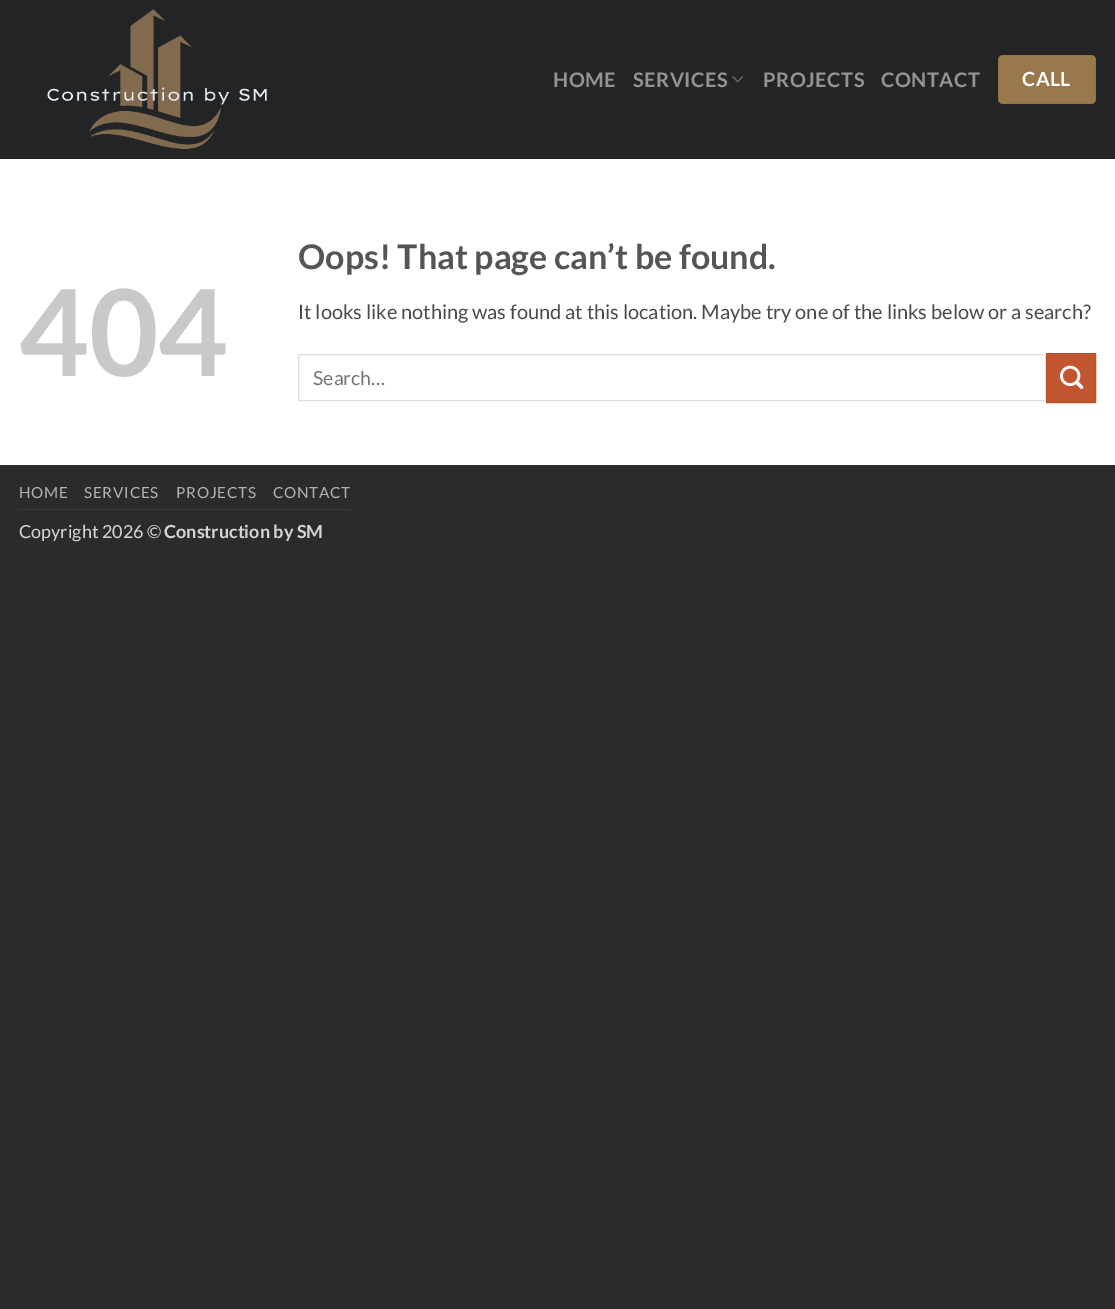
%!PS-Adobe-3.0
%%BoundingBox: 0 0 1115 1309
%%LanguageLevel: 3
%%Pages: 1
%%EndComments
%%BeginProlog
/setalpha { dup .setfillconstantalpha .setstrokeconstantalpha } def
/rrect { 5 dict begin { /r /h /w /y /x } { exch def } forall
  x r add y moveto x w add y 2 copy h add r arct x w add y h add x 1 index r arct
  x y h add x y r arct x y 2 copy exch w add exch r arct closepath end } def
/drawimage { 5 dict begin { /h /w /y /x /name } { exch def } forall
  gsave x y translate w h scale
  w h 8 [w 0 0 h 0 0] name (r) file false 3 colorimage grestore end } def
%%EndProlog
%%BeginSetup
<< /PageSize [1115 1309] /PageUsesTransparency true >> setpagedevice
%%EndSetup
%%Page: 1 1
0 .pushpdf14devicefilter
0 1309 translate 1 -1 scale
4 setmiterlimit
0.169 setgray
0 0 1115 1309 rectfill
1 setgray
0 159 1115 306 rectfill
0.137 0.141 0.145 setrgbcolor
0 0 1115 159 rectfill
(images/1.raw) 47 9 220 140 drawimage
(images/2.raw) 732 76 12 7 drawimage
0.604 0.471 0.298 setrgbcolor
998 55 98 49 5 rrect fill
0.05 setalpha
0 setgray
998.5 55.5 97 48 rectstroke
1 setalpha
0.867 setgray
298.5 354.5 747 46 rectstroke
0.753 0.333 0.188 setrgbcolor
newpath 1046.5 353.5 moveto 1095.5 353.5 lineto 1095.5 402.5 lineto 1046.5 402.5 lineto closepath gsave fill grestore
0.714 0.318 0.18 setrgbcolor
stroke
(images/3.raw) 1060 365 24 24 drawimage
0.224 setgray
19 509 332 1 rectfill
/Lato-Bold [20 0 0 -20 0 0] selectfont
0.576 setgray
553 87 moveto 0.5 0 (HOME) ashow
633 87 moveto 0.5 0 (SERVICES) ashow
763 87 moveto 0.5 0 (PROJECTS) ashow
881 87 moveto 0.5 0 (CONTACT) ashow
/Lato-Bold [19.5 0 0 -19.5 0 0] selectfont
1 setgray
1022 86 moveto 0.5 0 (CALL) ashow
/Lato-Bold [120 0 0 -120 0 0] selectfont
0.788 setgray
19 376 moveto (404) show
/Lato-Bold [34 0 0 -34 0 0] selectfont
0.333 setgray
298 269 moveto (Oops! That page can’t be found.) show
/Lato-Regular [20 0 0 -20 0 0] selectfont
0.29 setgray
298 319 moveto (It looks like nothing was found at this location. Maybe try one of the links below or a search?) show
/Lato-Regular [19.5 0 0 -19.5 0 0] selectfont
0.459 setgray
313 385 moveto (Search…) show
/Lato-Regular [15.25 0 0 -15.25 0 0] selectfont
0.702 setgray
19 498 moveto 0.75 0 (HOME) ashow
84 498 moveto 0.75 0 (SERVICES) ashow
176 498 moveto 0.75 0 (PROJECTS) ashow
273 498 moveto 0.75 0 (CONTACT) ashow
/Lato-Regular [18 0 0 -18 0 0] selectfont
0.835 setgray
19 538 moveto (Copyright 2026 ©) show
/Lato-Bold [18 0 0 -18 0 0] selectfont
164 538 moveto (Construction by SM) show
.poppdf14devicefilter showpage
%%EOF
